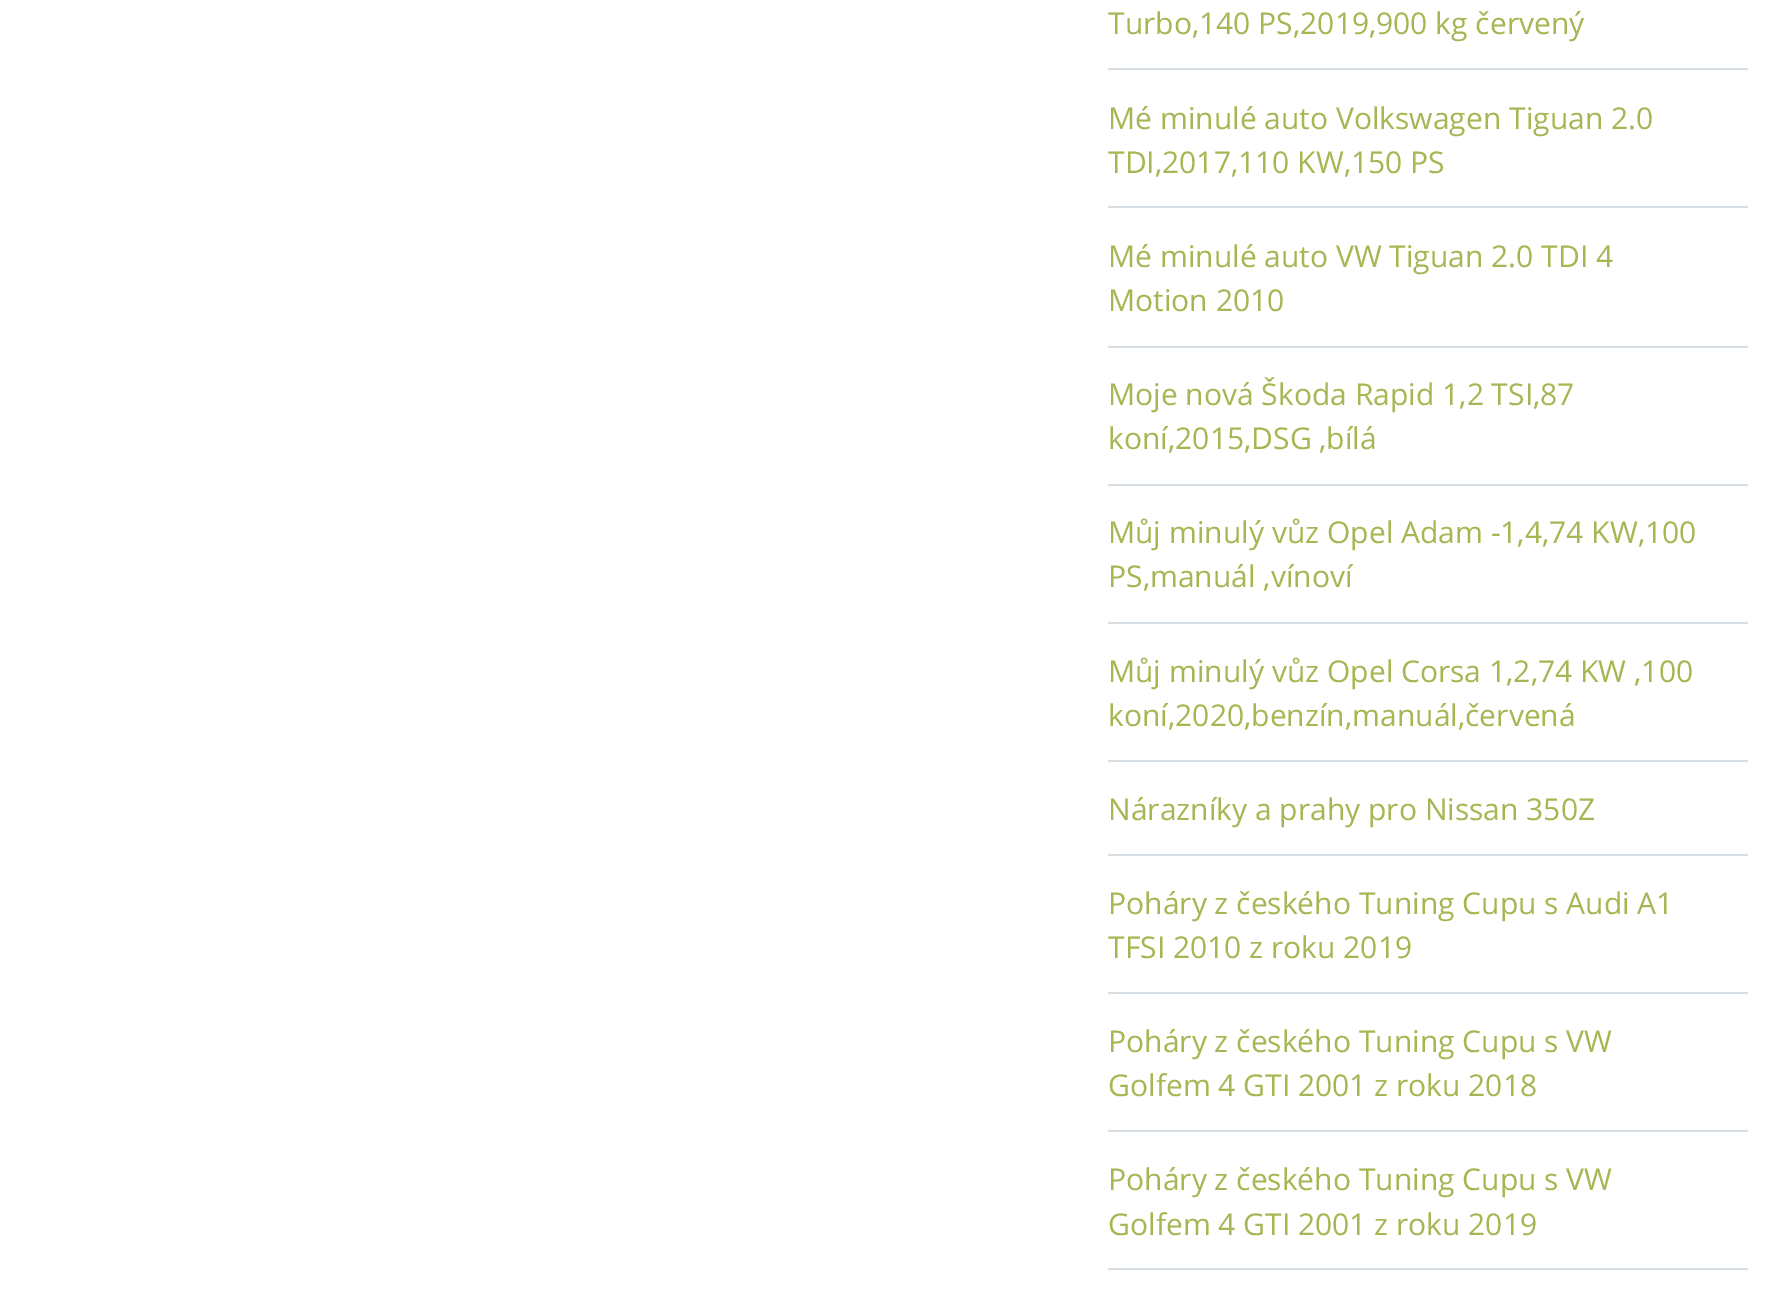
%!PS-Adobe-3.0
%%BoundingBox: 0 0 1777 1304
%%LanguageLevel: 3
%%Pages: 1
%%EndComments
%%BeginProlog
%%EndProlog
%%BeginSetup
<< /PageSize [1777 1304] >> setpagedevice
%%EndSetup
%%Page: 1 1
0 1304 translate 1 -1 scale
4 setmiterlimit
1 setgray
0 0 1777 1304 rectfill
0.839 0.867 0.89 setrgbcolor
1108 68 640 2 rectfill
1108 206 640 2 rectfill
1108 346 640 2 rectfill
1108 484 640 2 rectfill
1108 622 640 2 rectfill
1108 760 640 2 rectfill
1108 854 640 2 rectfill
1108 992 640 2 rectfill
1108 1130 640 2 rectfill
1108 1268 640 2 rectfill
/OpenSans-Regular [30 0 0 -30 0 0] selectfont
0.647 0.718 0.325 setrgbcolor
1108 34 moveto (Turbo,140 PS,2019,900 kg červený) show
1108 129 moveto (Mé minulé auto Volkswagen Tiguan 2.0) show
1108 173 moveto (TDI,2017,110 KW,150 PS) show
1108 267 moveto (Mé minulé auto VW Tiguan 2.0 TDI 4) show
1108 311 moveto (Motion 2010) show
1108 405 moveto (Moje nová Škoda Rapid 1,2 TSI,87) show
1108 449 moveto (koní,2015,DSG ,bílá) show
1108 543 moveto (Můj minulý vůz Opel Adam -1,4,74 KW,100) show
1108 587 moveto (PS,manuál ,vínoví) show
1108 682 moveto (Můj minulý vůz Opel Corsa 1,2,74 KW ,100) show
1108 726 moveto (koní,2020,benzín,manuál,červená) show
1108 820 moveto (Nárazníky a prahy pro Nissan 350Z) show
1108 914 moveto (Poháry z českého Tuning Cupu s Audi A1) show
1108 958 moveto (TFSI 2010 z roku 2019) show
1108 1052 moveto (Poháry z českého Tuning Cupu s VW) show
1108 1096 moveto (Golfem 4 GTI 2001 z roku 2018) show
1108 1190 moveto (Poháry z českého Tuning Cupu s VW) show
1108 1235 moveto (Golfem 4 GTI 2001 z roku 2019) show
showpage
%%EOF
